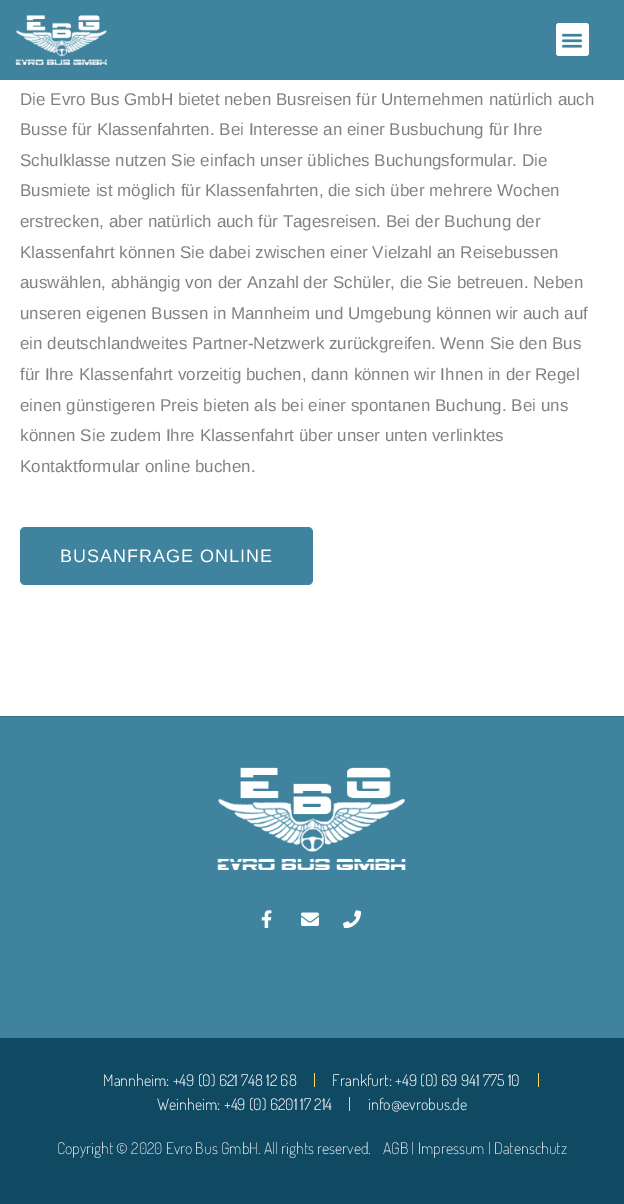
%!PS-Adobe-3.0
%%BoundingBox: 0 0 624 1204
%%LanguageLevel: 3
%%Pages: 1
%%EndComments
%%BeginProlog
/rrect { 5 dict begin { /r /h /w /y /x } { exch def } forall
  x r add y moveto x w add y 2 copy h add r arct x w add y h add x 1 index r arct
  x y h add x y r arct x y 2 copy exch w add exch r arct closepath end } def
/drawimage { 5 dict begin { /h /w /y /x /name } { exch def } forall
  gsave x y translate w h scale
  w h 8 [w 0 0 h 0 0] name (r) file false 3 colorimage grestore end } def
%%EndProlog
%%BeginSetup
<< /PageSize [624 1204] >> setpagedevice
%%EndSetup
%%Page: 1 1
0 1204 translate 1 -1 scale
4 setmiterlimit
1 setgray
0 0 624 1204 rectfill
0.247 0.514 0.62 setrgbcolor
0 0 624 80 rectfill
(images/1.raw) 15 15 93 50 drawimage
1 setgray
556 23 33 33 3 rrect fill
(images/2.raw) 561 33 22 15 drawimage
0.247 0.514 0.62 setrgbcolor
20 527 293 58 5 rrect fill
0 717 624 321 rectfill
0.2 0.451 0.537 setrgbcolor
0 716 624 1 rectfill
(images/3.raw) 217 767 189 103 drawimage
(images/4.raw) 261 910 11 18 drawimage
(images/5.raw) 301 912 18 14 drawimage
(images/6.raw) 343 910 18 18 drawimage
0.063 0.29 0.384 setrgbcolor
0 1038 624 166 rectfill
1 0.839 0.392 setrgbcolor
314 1073 1 14 rectfill
538 1073 1 14 rectfill
349 1097 1 14 rectfill
/LiberationSans-Regular [17 0 0 -17 0 0] selectfont
0.506 setgray
20 105 moveto (Die Evro Bus GmbH bietet neben Busreisen für Unternehmen natürlich auch) show
20 135 moveto (Busse für Klassenfahrten. Bei Interesse an einer Busbuchung für Ihre) show
20 166 moveto (Schulklasse nutzen Sie einfach unser übliches Buchungsformular. Die) show
20 196 moveto (Busmiete ist möglich für Klassenfahrten, die sich über mehrere Wochen) show
20 227 moveto (erstrecken, aber natürlich auch für Tagesreisen. Bei der Buchung der) show
20 258 moveto (Klassenfahrt können Sie dabei zwischen einer Vielzahl an Reisebussen) show
20 288 moveto (auswählen, abhängig von der Anzahl der Schüler, die Sie betreuen. Neben) show
20 319 moveto (unseren eigenen Bussen in Mannheim und Umgebung können wir auch auf) show
20 349 moveto (ein deutschlandweites Partner-Netzwerk zurückgreifen. Wenn Sie den Bus) show
20 380 moveto (für Ihre Klassenfahrt vorzeitig buchen, dann können wir Ihnen in der Regel) show
20 411 moveto (einen günstigeren Preis bieten als bei einer spontanen Buchung. Bei uns) show
20 441 moveto (können Sie zudem Ihre Klassenfahrt über unser unten verlinktes) show
20 472 moveto (Kontaktformular online buchen.) show
/LiberationSans-Regular [18 0 0 -18 0 0] selectfont
1 setgray
60 562 moveto 1 0 (BUSANFRAGE ONLINE) ashow
/Dosis-Light [16 0 0 -16 0 0] selectfont
103 1086 moveto (Mannheim: +49 \(0\) 621 748 12 68) show
332 1086 moveto (Frankfurt: +49 \(0\) 69 941 775 10) show
157 1110 moveto (Weinheim: +49 \(0\) 6201 17 214) show
368 1110 moveto (info@evrobus.de) show
/Dosis-ExtraLight [16 0 0 -16 0 0] selectfont
57 1154 moveto (Copyright © 2020 Evro Bus GmbH. All rights reserved.) show
383 1154 moveto (AGB | Impressum | Datenschutz) show
showpage
%%EOF
